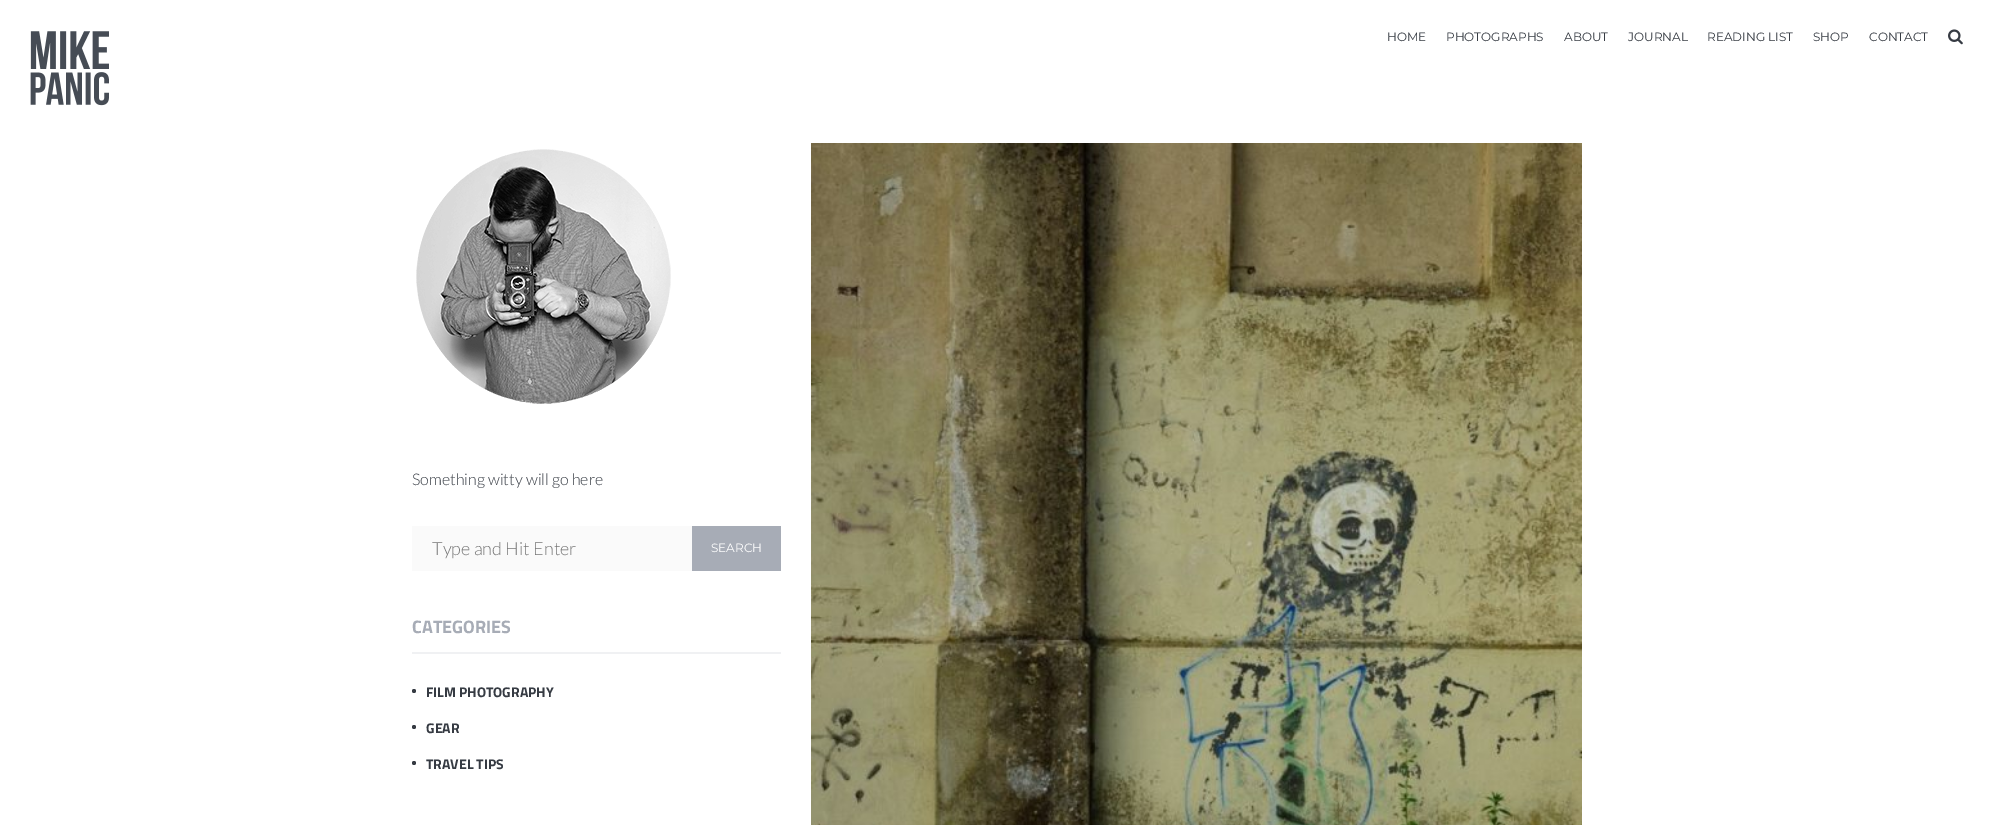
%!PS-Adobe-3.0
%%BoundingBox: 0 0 1993 825
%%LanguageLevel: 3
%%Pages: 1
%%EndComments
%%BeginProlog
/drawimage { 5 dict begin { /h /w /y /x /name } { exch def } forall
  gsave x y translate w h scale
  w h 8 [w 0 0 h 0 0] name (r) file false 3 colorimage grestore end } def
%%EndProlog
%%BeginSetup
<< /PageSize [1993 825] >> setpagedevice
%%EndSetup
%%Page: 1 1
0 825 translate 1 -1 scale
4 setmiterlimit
1 setgray
0 0 1993 825 rectfill
(images/1.raw) 30 31 79 75 drawimage
(images/2.raw) 1948 29 15 16 drawimage
(images/3.raw) 416 149 255 255 drawimage
0.98 setgray
412 526 280 45 rectfill
0.655 0.675 0.714 setrgbcolor
692 526 89 45 rectfill
0.941 0.945 0.953 setrgbcolor
412 652 369 2 rectfill
0.212 0.231 0.263 setrgbcolor
newpath 414 691 2 0 360 arc closepath fill
newpath 414 727 2 0 360 arc closepath fill
newpath 414 763 2 0 360 arc closepath fill
(images/4.raw) 811 143 771 682 drawimage
/Montserrat-Thin [12 0 0 -12 0 0] selectfont
1387 41 moveto (HOME) show
1446 41 moveto (PHOTOGRAPHS) show
1564 41 moveto (ABOUT) show
1628 41 moveto (JOURNAL) show
1707 41 moveto (READING LIST) show
1813 41 moveto (SHOP) show
1869 41 moveto (CONTACT) show
/Lato-Light [16 0 0 -16 0 0] selectfont
412 485 moveto (Something witty will go here) show
/Lato-Light [18 0 0 -18 0 0] selectfont
0.459 setgray
432 555 moveto (Type and Hit Enter) show
/Montserrat-Thin [12 0 0 -12 0 0] selectfont
1 setgray
711 552 moveto (SEARCH) show
/TitilliumWeb-Bold [18 0 0 -18 0 0] selectfont
0.655 0.675 0.714 setrgbcolor
412 633 moveto (CATEGORIES) show
/TitilliumWeb-Bold [14 0 0 -14 0 0] selectfont
0.212 0.231 0.263 setrgbcolor
426 697 moveto (FILM PHOTOGRAPHY) show
426 733 moveto (GEAR) show
426 769 moveto (TRAVEL TIPS) show
showpage
%%EOF
